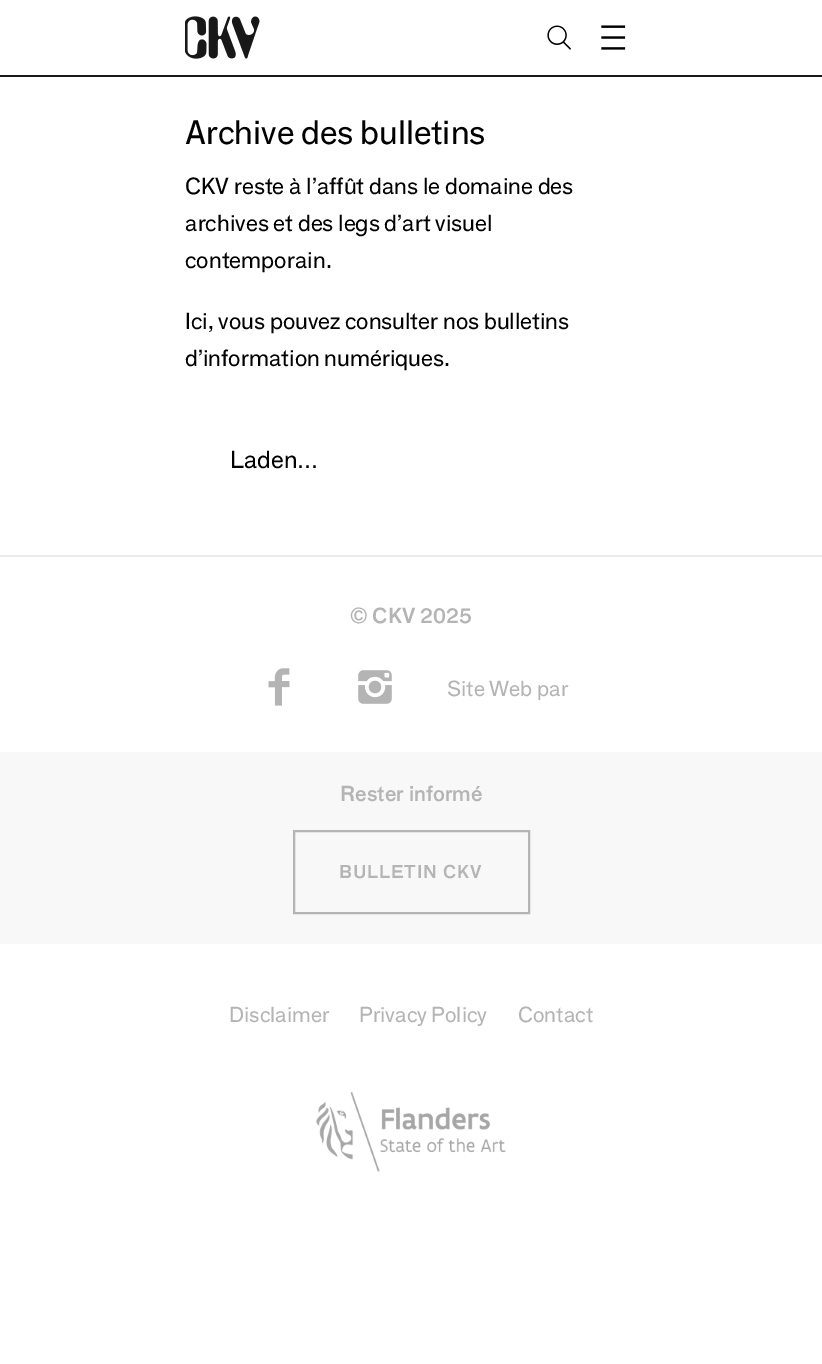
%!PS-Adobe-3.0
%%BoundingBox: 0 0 822 1364
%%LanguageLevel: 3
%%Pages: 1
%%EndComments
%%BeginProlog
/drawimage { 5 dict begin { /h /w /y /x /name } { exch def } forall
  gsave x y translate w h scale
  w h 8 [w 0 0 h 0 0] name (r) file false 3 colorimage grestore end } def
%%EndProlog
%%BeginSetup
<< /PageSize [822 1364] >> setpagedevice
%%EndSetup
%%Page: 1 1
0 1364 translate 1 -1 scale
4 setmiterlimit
1 setgray
0 0 822 1364 rectfill
0.094 setgray
0 75 822 2 rectfill
(images/1.raw) 185 16 75 43 drawimage
(images/2.raw) 547 25 24 25 drawimage
(images/3.raw) 601 25 25 25 drawimage
0.922 setgray
0 555 822 2 rectfill
(images/4.raw) 268 668 22 38 drawimage
(images/5.raw) 358 670 34 34 drawimage
0.973 setgray
0 752 822 192 rectfill
0.706 setgray
2 setlinewidth
294 831 235 82 rectstroke
(images/6.raw) 316 1092 190 80 drawimage
/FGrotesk-Regular [33 0 0 -33 0 0] selectfont
0 setgray
185 144 moveto (Archive des bulletins) show
/FGrotesk-Regular [22.5 0 0 -22.5 0 0] selectfont
185 194 moveto (CKV reste à l’affût dans le domaine des) show
185 231 moveto (archives et des legs d’art visuel) show
185 268 moveto (contemporain.) show
185 329 moveto (Ici, vous pouvez consulter nos bulletins) show
185 366 moveto (d’information numériques.) show
/FGrotesk-Regular [24 0 0 -24 0 0] selectfont
230 468 moveto (Laden…) show
/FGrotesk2-Regular [21 0 0 -21 0 0] selectfont
0.706 setgray
350 623 moveto (© CKV 2025) show
/FGrotesk-Regular [21 0 0 -21 0 0] selectfont
447 696 moveto (Site Web par) show
/FGrotesk2-Regular [21 0 0 -21 0 0] selectfont
340 801 moveto (Rester informé) show
/FGrotesk2-Regular [18 0 0 -18 0 0] selectfont
339 878 moveto 0.9 0 (BULLETIN CKV) ashow
/FGrotesk-Regular [21 0 0 -21 0 0] selectfont
229 1022 moveto (Disclaimer) show
359 1022 moveto (Privacy Policy) show
518 1022 moveto (Contact) show
showpage
%%EOF
